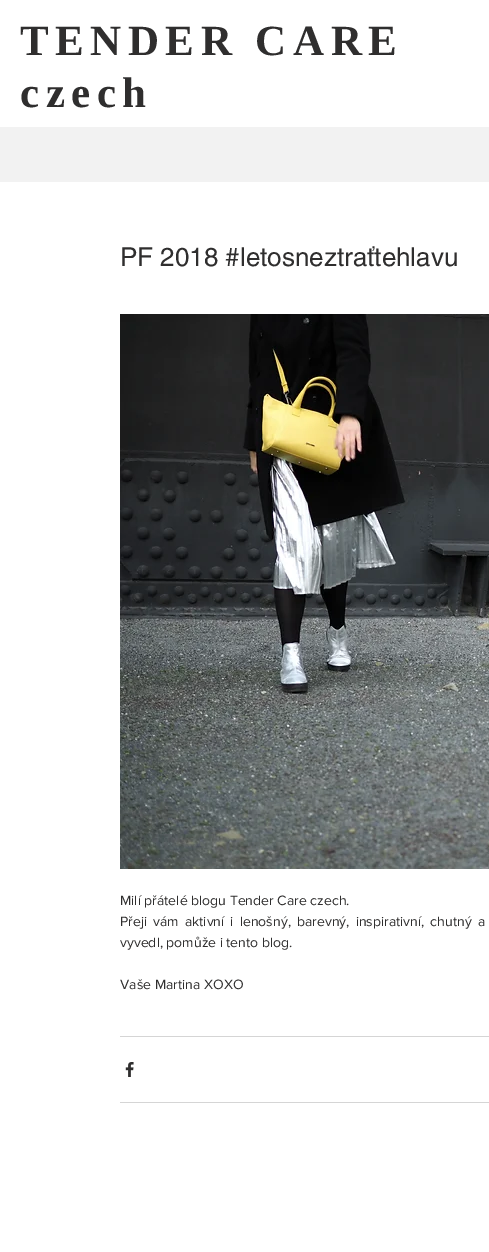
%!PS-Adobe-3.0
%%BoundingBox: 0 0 489 1252
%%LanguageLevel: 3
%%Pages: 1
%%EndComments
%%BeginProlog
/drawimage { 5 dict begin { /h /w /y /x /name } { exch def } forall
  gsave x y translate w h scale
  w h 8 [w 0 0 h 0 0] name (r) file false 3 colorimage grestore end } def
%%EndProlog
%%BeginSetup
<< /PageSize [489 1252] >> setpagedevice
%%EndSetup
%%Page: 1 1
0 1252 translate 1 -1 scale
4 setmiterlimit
0.949 setgray
0 0 489 1252 rectfill
1 setgray
0 0 489 127 rectfill
0 182 489 1070 rectfill
(images/1.raw) 120 314 369 555 drawimage
0.835 setgray
120 1036 369 1 rectfill
(images/2.raw) 125 1062 9 15 drawimage
120 1102 369 1 rectfill
/LiberationSerif-Bold [43 0 0 -43 0 0] selectfont
0.184 0.18 0.18 setrgbcolor
20 55 moveto 6.5 0 (TENDER CARE) ashow
20 107 moveto 6.5 0 (czech) ashow
/helvetica-Regular [26 0 0 -26 0 0] selectfont
120 266 moveto (PF 2018 #letosneztraťtehlavu) show
/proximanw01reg-Regular [14 0 0 -14 0 0] selectfont
120 905 moveto (Milí přátelé blogu Tender Care czech.) show
120 926 moveto 2.5 0 32 (Přeji vám aktivní i lenošný, barevný, inspirativní, chutný a) widthshow
120 947 moveto (vyvedl, pomůže i tento blog.) show
120 989 moveto (Vaše Martina XOXO) show
showpage
%%EOF
